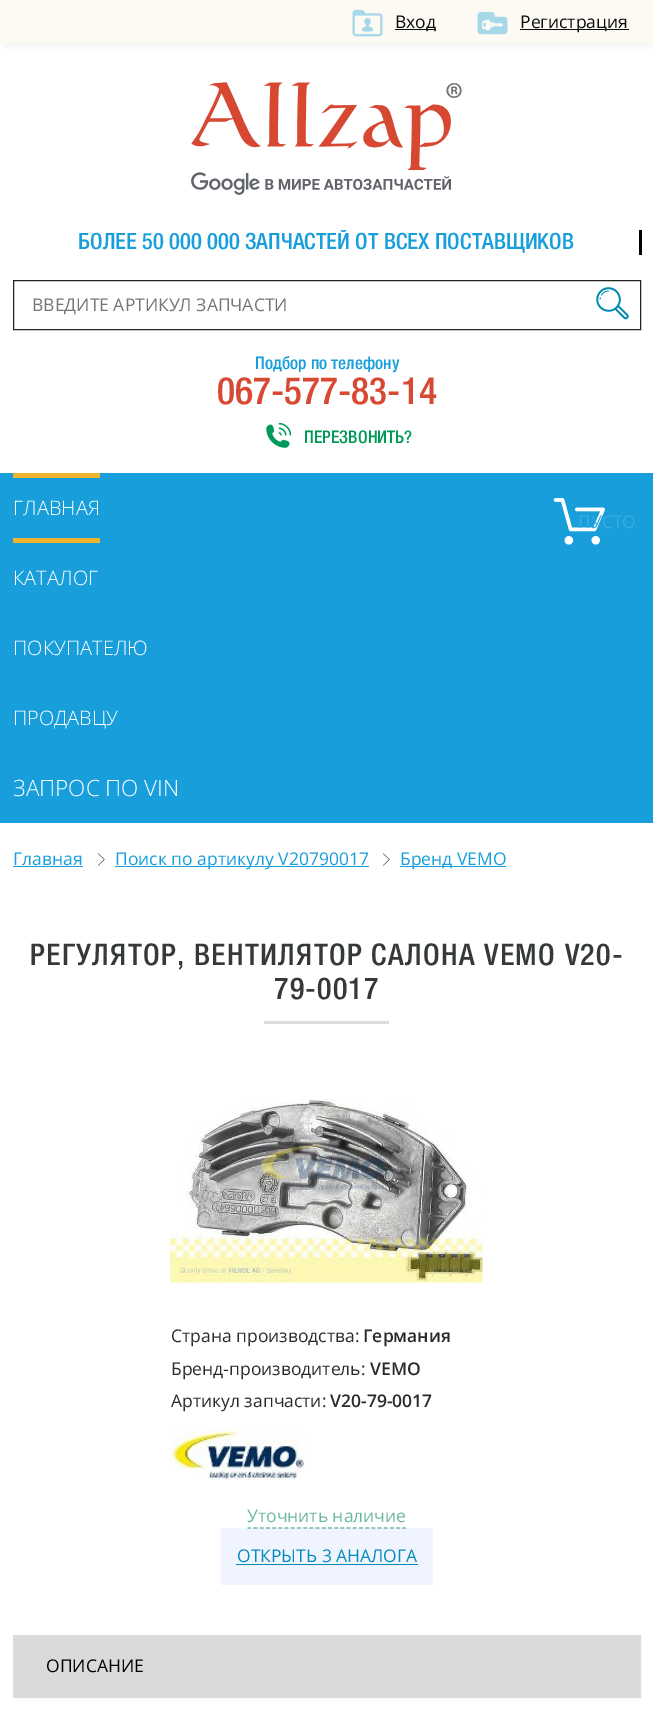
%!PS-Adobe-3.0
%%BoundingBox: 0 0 653 1710
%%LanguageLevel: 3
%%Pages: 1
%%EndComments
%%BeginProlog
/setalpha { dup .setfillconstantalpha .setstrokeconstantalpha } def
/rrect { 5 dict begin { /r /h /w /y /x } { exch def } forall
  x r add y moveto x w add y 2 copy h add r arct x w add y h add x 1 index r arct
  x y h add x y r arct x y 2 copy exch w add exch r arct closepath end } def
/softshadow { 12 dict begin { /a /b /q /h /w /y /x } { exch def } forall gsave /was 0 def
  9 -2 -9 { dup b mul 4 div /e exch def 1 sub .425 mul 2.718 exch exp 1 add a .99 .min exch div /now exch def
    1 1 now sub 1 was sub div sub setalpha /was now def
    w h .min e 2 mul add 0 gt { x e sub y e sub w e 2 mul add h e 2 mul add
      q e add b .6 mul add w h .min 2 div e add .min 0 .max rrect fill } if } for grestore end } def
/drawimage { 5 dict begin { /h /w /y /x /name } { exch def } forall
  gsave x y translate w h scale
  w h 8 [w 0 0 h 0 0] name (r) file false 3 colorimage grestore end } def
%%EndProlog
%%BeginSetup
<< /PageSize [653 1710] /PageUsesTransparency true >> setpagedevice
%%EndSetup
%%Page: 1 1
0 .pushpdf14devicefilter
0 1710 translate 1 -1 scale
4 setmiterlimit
1 setgray
0 0 653 1710 rectfill
0 setgray
4 5 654 43 0 3 0.04 softshadow
0.992 0.98 0.953 setrgbcolor
0 0 653 43 rectfill
(images/1.raw) 352 9 31 28 drawimage
0.035 0.047 0.043 setrgbcolor
395 29 41 1 rectfill
(images/2.raw) 477 12 31 23 drawimage
520 29 109 1 rectfill
(images/3.raw) 191 82 271 113 drawimage
0 setgray
639 230 3 25 rectfill
0.129 0.141 0.137 setrgbcolor
13.5 280.5 627 49 rectstroke
(images/4.raw) 596 287 33 33 drawimage
(images/5.raw) 266 422 26 26 drawimage
0.09 0.62 0.859 setrgbcolor
0 473 653 350 rectfill
0.929 0.71 0.176 setrgbcolor
13 473 87 5 rectfill
13 538 87 5 rectfill
(images/6.raw) 553 498 52 47 drawimage
0.09 0.62 0.859 setrgbcolor
13 866 70 1 rectfill
(images/7.raw) 98 853 7 13 drawimage
115 866 254 1 rectfill
(images/7.raw) 383 853 7 13 drawimage
400 866 106 1 rectfill
0.863 setgray
264 1021 125 3 rectfill
(images/8.raw) 170 1099 313 184 drawimage
(images/9.raw) 170 1430 135 50 drawimage
0.941 0.957 1 setrgbcolor
221 1528 212 57 rectfill
0.427 0.722 0.62 setrgbcolor
1.2 setlinewidth
[3.75 2.45] 0 setdash
newpath 247.5 1528 moveto 406 1528 lineto stroke
0.02 0.541 0.737 setrgbcolor
236 1564 182 1 rectfill
0.855 setgray
newpath 13.5 1635.5 moveto 640.5 1635.5 lineto 640.5 1697.5 lineto 13.5 1697.5 lineto closepath gsave fill grestore
0.863 setgray
1 setlinewidth
[] 0 setdash
stroke
/OpenSans-Regular [17.5 0 0 -17.5 0 0] selectfont
0.035 0.047 0.043 setrgbcolor
395 28 moveto (Вход) show
520 28 moveto (Регистрация) show
gsave
13 230 626 25 rectclip
/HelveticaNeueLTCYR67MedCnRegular-Regular [22.5 0 0 -22.5 0 0] selectfont
0.09 0.62 0.859 setrgbcolor
78 249 moveto (БОЛЕЕ 50 000 000 ЗАПЧАСТЕЙ ОТ ВСЕХ ПОСТАВЩИКОВ) show
grestore
0.459 setgray
32 311 moveto (ВВЕДИТЕ АРТИКУЛ ЗАПЧАСТИ) show
/HelveticaNeueLTCYR67MedCnRegular-Regular [17.5 0 0 -17.5 0 0] selectfont
0.09 0.62 0.859 setrgbcolor
255 369 moveto (Подбор по телефону) show
/HelveticaNeueLTCYR67MedCnRegular-Regular [37.5 0 0 -37.5 0 0] selectfont
0.843 0.286 0.2 setrgbcolor
217 404 moveto (067-577-83-14) show
/HelveticaNeueLTCYR67MedCnRegular-Regular [17.5 0 0 -17.5 0 0] selectfont
0 0.604 0.345 setrgbcolor
304 443 moveto (ПЕРЕЗВОНИТЬ?) show
/OpenSans-Light [20 0 0 -20 0 0] selectfont
1 setgray
13 515 moveto (ГЛАВНАЯ) show
13 585 moveto (КАТАЛОГ) show
13 655 moveto (ПОКУПАТЕЛЮ) show
13 725 moveto (ПРОДАВЦУ) show
/OpenSans-Regular [17.5 0 0 -17.5 0 0] selectfont
0.22 0.675 0.878 setrgbcolor
578 528 moveto (ПУСТО) show
/OpenSans-Light [22.5 0 0 -22.5 0 0] selectfont
1 setgray
13 796 moveto (ЗАПРОС ПО VIN) show
/OpenSans-Regular [17.5 0 0 -17.5 0 0] selectfont
0.09 0.62 0.859 setrgbcolor
13 865 moveto (Главная) show
115 865 moveto (Поиск по артикулу V20790017) show
400 865 moveto (Бренд VEMO) show
/HelveticaNeueLTCYR67MedCnRegular-Regular [30 0 0 -30 0 0] selectfont
0.208 0.224 0.227 setrgbcolor
30 965 moveto 1.25 0 (РЕГУЛЯТОР, ВЕНТИЛЯТОР САЛОНА VEMO V20-) ashow
274 999 moveto 1.25 0 (79-0017) ashow
/OpenSans-Regular [17.5 0 0 -17.5 0 0] selectfont
0.161 0.165 0.165 setrgbcolor
171 1342 moveto (Страна производства:) show
/OpenSans-SemiBold [17.5 0 0 -17.5 0 0] selectfont
363 1342 moveto (Германия) show
/OpenSans-Regular [17.5 0 0 -17.5 0 0] selectfont
171 1375 moveto (Бренд-производитель:) show
/OpenSans-SemiBold [17.5 0 0 -17.5 0 0] selectfont
370 1375 moveto (VEMO) show
/OpenSans-Regular [17.5 0 0 -17.5 0 0] selectfont
171 1407 moveto (Артикул запчасти:) show
/OpenSans-SemiBold [17.5 0 0 -17.5 0 0] selectfont
330 1407 moveto (V20-79-0017) show
/OpenSans-Regular [17.5 0 0 -17.5 0 0] selectfont
0.427 0.722 0.62 setrgbcolor
247 1522 moveto (Уточнить наличие) show
0.02 0.541 0.737 setrgbcolor
237 1562 moveto (ОТКРЫТЬ 3 АНАЛОГА) show
0 setgray
46 1672 moveto (ОПИСАНИЕ) show
.poppdf14devicefilter showpage
%%EOF
